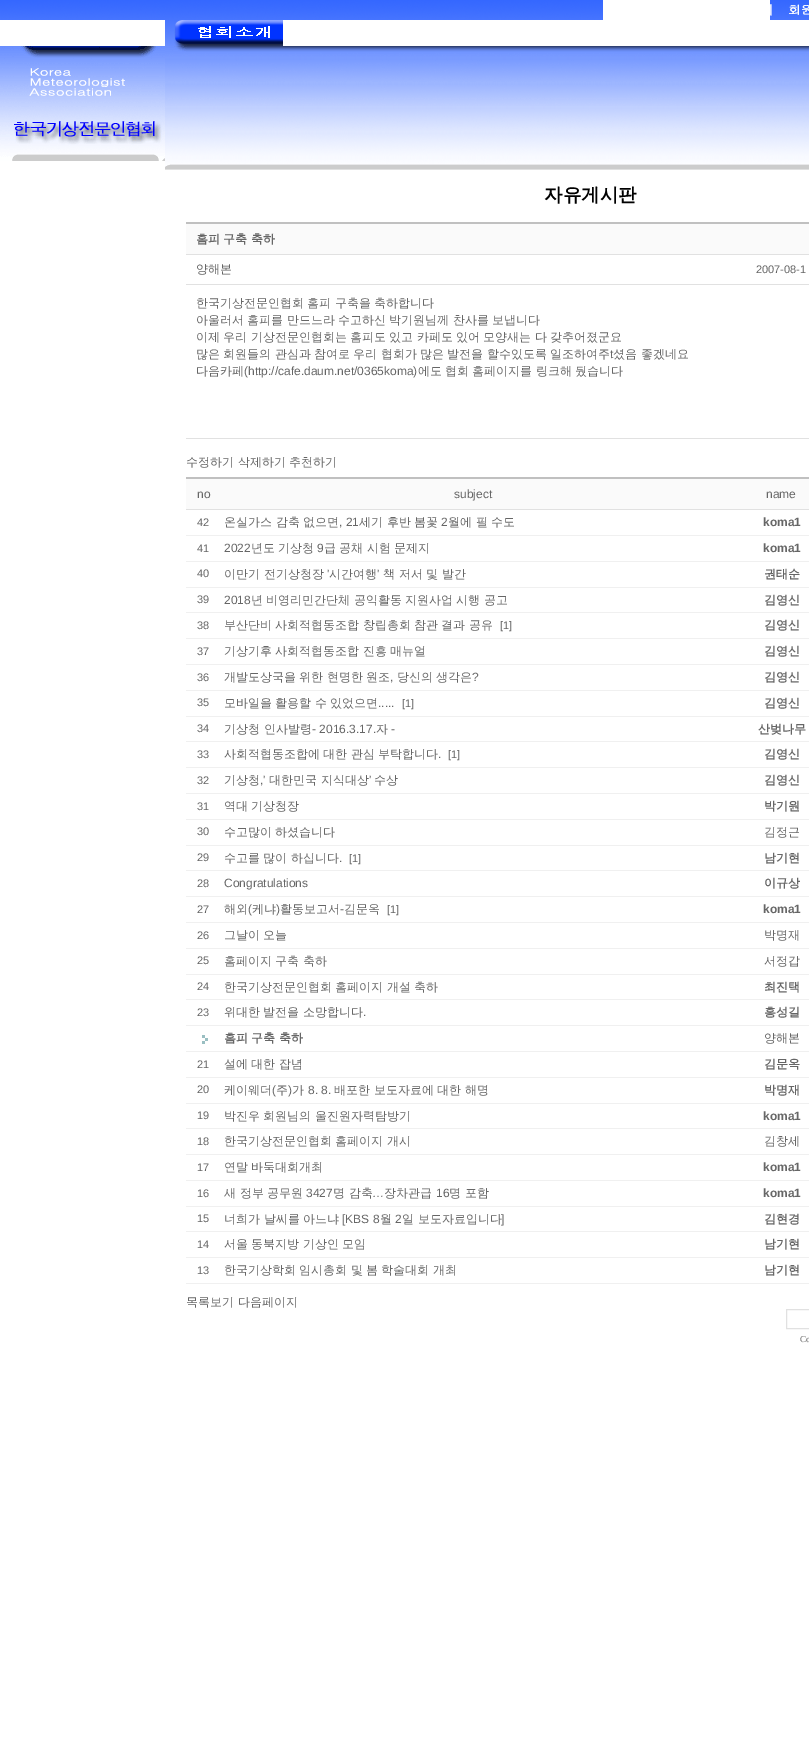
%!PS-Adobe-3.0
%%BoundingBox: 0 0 809 1740
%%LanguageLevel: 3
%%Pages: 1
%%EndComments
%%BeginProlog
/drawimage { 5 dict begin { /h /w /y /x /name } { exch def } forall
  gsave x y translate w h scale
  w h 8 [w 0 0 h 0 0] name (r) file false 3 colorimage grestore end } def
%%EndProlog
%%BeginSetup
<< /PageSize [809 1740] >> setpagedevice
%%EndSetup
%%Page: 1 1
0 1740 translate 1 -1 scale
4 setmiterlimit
1 setgray
0 0 809 1740 rectfill
(images/1.raw) 0 0 603 20 drawimage
(images/2.raw) 770 0 39 20 drawimage
(images/3.raw) 165 20 118 26 drawimage
(images/4.raw) 0 46 165 115 drawimage
(images/5.raw) 165 46 644 124 drawimage
0.753 setgray
186 222 623 2 rectfill
0.98 setgray
186 224 623 30 rectfill
0.882 setgray
186 254 623 1 rectfill
186 284 623 1 rectfill
186 438 623 1 rectfill
0.753 setgray
186 477 623 2 rectfill
0.98 setgray
186 479 623 30 rectfill
0.882 setgray
186 509 623 1 rectfill
0.941 setgray
186 535 623 1 rectfill
186 561 623 1 rectfill
186 587 623 1 rectfill
186 612 623 1 rectfill
186 638 623 1 rectfill
186 664 623 1 rectfill
186 690 623 1 rectfill
186 716 623 1 rectfill
186 741 623 1 rectfill
186 767 623 1 rectfill
186 793 623 1 rectfill
186 819 623 1 rectfill
186 845 623 1 rectfill
186 870 623 1 rectfill
186 896 623 1 rectfill
186 922 623 1 rectfill
186 948 623 1 rectfill
186 974 623 1 rectfill
186 999 623 1 rectfill
186 1025 623 1 rectfill
(images/6.raw) 202 1035 6 9 drawimage
186 1051 623 1 rectfill
186 1077 623 1 rectfill
186 1103 623 1 rectfill
186 1128 623 1 rectfill
186 1154 623 1 rectfill
186 1180 623 1 rectfill
186 1206 623 1 rectfill
186 1231 623 1 rectfill
186 1257 623 1 rectfill
186 1283 623 1 rectfill
0.882 setgray
786.5 1309.5 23 19 rectstroke
/WenQuanYiZenHei-Bold [18.5 0 0 -18.5 0 0] selectfont
0 setgray
544 201 moveto (자유게시판) show
/WenQuanYiZenHei-Bold [12 0 0 -12 0 0] selectfont
0.4 setgray
196 243 moveto -0.25 0 32 (홈피 구축 축하) widthshow
/WenQuanYiZenHei-Medium [12 0 0 -12 0 0] selectfont
196 273 moveto (양해본) show
/LiberationSans-Regular [11 0 0 -11 0 0] selectfont
756 273 moveto (2007-08-1) show
/WenQuanYiZenHei-Medium [12 0 0 -12 0 0] selectfont
196 307 moveto -0.25 0 32 (한국기상전문인협회 홈피 구축을 축하합니다) widthshow
196 324 moveto -0.25 0 32 (아울러서 홈피를 만드느라 수고하신 박기원님께 찬사를 보냅니다) widthshow
196 341 moveto -0.25 0 32 (이제 우리 기상전문인협회는 홈피도 있고 카페도 있어 모양새는 다 갖추어졌군요) widthshow
196 358 moveto -0.25 0 32 (많은 회원들의 관심과 참여로 우리 협회가 많은 발전을 할수있도록 일조하여주 셨음 좋겠네요) widthshow
/LiberationSans-Regular [12 0 0 -12 0 0] selectfont
610 358 moveto (t) show
/WenQuanYiZenHei-Medium [12 0 0 -12 0 0] selectfont
196 375 moveto (다음카페) show
/LiberationSans-Regular [12 0 0 -12 0 0] selectfont
244 375 moveto (\(http://cafe.daum.net/0365koma\)) show
/WenQuanYiZenHei-Medium [12 0 0 -12 0 0] selectfont
418 375 moveto (에도) show
445 375 moveto -0.25 0 32 (협회 홈페이지를 링크해 뒀습니다) widthshow
186 466 moveto (수정하기 삭제하기 추천하기) show
/LiberationSans-Regular [12 0 0 -12 0 0] selectfont
197 498 moveto (no) show
454 498 moveto (subject) show
766 498 moveto (name) show
/LiberationSans-Regular [11 0 0 -11 0 0] selectfont
197 526 moveto (42) show
/WenQuanYiZenHei-Medium [12 0 0 -12 0 0] selectfont
224 526 moveto (온실가스 감축 없으면) show
/LiberationSans-Regular [12 0 0 -12 0 0] selectfont
339 526 moveto (, 21) show
/WenQuanYiZenHei-Medium [12 0 0 -12 0 0] selectfont
359 526 moveto (세기 후반 봄꽃) show
/LiberationSans-Regular [12 0 0 -12 0 0] selectfont
441 526 moveto (2) show
/WenQuanYiZenHei-Medium [12 0 0 -12 0 0] selectfont
448 526 moveto (월에 필 수도) show
/LiberationSans-Bold [12 0 0 -12 0 0] selectfont
763 526 moveto (koma1) show
/LiberationSans-Regular [11 0 0 -11 0 0] selectfont
197 552 moveto (41) show
/LiberationSans-Regular [12 0 0 -12 0 0] selectfont
224 552 moveto (2022) show
/WenQuanYiZenHei-Medium [12 0 0 -12 0 0] selectfont
251 552 moveto -0.25 0 32 (년도 기상청) widthshow
/LiberationSans-Regular [12 0 0 -12 0 0] selectfont
317 552 moveto (9) show
/WenQuanYiZenHei-Medium [12 0 0 -12 0 0] selectfont
324 552 moveto -0.25 0 32 (급 공채 시험 문제지) widthshow
/LiberationSans-Bold [12 0 0 -12 0 0] selectfont
763 552 moveto (koma1) show
/LiberationSans-Regular [11 0 0 -11 0 0] selectfont
197 577 moveto (40) show
/WenQuanYiZenHei-Medium [12 0 0 -12 0 0] selectfont
224 578 moveto (이만기 전기상청장) show
/LiberationSans-Regular [12 0 0 -12 0 0] selectfont
327 578 moveto (') show
/WenQuanYiZenHei-Medium [12 0 0 -12 0 0] selectfont
329 578 moveto (시간여행) show
/LiberationSans-Regular [12 0 0 -12 0 0] selectfont
377 578 moveto (') show
/WenQuanYiZenHei-Medium [12 0 0 -12 0 0] selectfont
383 578 moveto (책 저서 및 발간) show
/WenQuanYiZenHei-Bold [12 0 0 -12 0 0] selectfont
764 578 moveto (권태순) show
/LiberationSans-Regular [11 0 0 -11 0 0] selectfont
197 603 moveto (39) show
/LiberationSans-Regular [12 0 0 -12 0 0] selectfont
224 604 moveto (2018) show
/WenQuanYiZenHei-Medium [12 0 0 -12 0 0] selectfont
251 604 moveto -0.25 0 32 (년 비영리민간단체 공익활동 지원사업 시행 공고) widthshow
/WenQuanYiZenHei-Bold [12 0 0 -12 0 0] selectfont
764 604 moveto (김영신) show
/LiberationSans-Regular [11 0 0 -11 0 0] selectfont
197 629 moveto (38) show
/WenQuanYiZenHei-Medium [12 0 0 -12 0 0] selectfont
224 629 moveto -0.25 0 32 (부산단비 사회적협동조합 창립총회 참관 결과 공유) widthshow
/LiberationSans-Regular [11 0 0 -11 0 0] selectfont
500 629 moveto ([1]) show
/WenQuanYiZenHei-Bold [12 0 0 -12 0 0] selectfont
764 629 moveto (김영신) show
/LiberationSans-Regular [11 0 0 -11 0 0] selectfont
197 655 moveto (37) show
/WenQuanYiZenHei-Medium [12 0 0 -12 0 0] selectfont
224 655 moveto -0.25 0 32 (기상기후 사회적협동조합 진흥 매뉴얼) widthshow
/WenQuanYiZenHei-Bold [12 0 0 -12 0 0] selectfont
764 655 moveto (김영신) show
/LiberationSans-Regular [11 0 0 -11 0 0] selectfont
197 681 moveto (36) show
/WenQuanYiZenHei-Medium [12 0 0 -12 0 0] selectfont
224 681 moveto -0.25 0 32 (개발도상국을 위한 현명한 원조) widthshow
/LiberationSans-Regular [12 0 0 -12 0 0] selectfont
390 681 moveto (,) show
/WenQuanYiZenHei-Medium [12 0 0 -12 0 0] selectfont
397 681 moveto -0.25 0 32 (당신의 생각은) widthshow
/LiberationSans-Regular [12 0 0 -12 0 0] selectfont
472 681 moveto (?) show
/WenQuanYiZenHei-Bold [12 0 0 -12 0 0] selectfont
764 681 moveto (김영신) show
/LiberationSans-Regular [11 0 0 -11 0 0] selectfont
197 706 moveto (35) show
/WenQuanYiZenHei-Medium [12 0 0 -12 0 0] selectfont
224 707 moveto -0.25 0 32 (모바일을 활용할 수 있었으면) widthshow
/LiberationSans-Regular [12 0 0 -12 0 0] selectfont
378 707 moveto (.....) show
/LiberationSans-Regular [11 0 0 -11 0 0] selectfont
402 707 moveto ([1]) show
/WenQuanYiZenHei-Bold [12 0 0 -12 0 0] selectfont
764 707 moveto (김영신) show
/LiberationSans-Regular [11 0 0 -11 0 0] selectfont
197 732 moveto (34) show
/WenQuanYiZenHei-Medium [12 0 0 -12 0 0] selectfont
224 733 moveto (기상청 인사발령) show
/LiberationSans-Regular [12 0 0 -12 0 0] selectfont
312 733 moveto (- 2016.3.17.) show
/WenQuanYiZenHei-Medium [12 0 0 -12 0 0] selectfont
376 733 moveto (자) show
/LiberationSans-Regular [12 0 0 -12 0 0] selectfont
391 733 moveto (-) show
/WenQuanYiZenHei-Bold [12 0 0 -12 0 0] selectfont
758 733 moveto (산벚나무) show
/LiberationSans-Regular [11 0 0 -11 0 0] selectfont
197 758 moveto (33) show
/WenQuanYiZenHei-Medium [12 0 0 -12 0 0] selectfont
224 758 moveto -0.25 0 32 (사회적협동조합에 대한 관심 부탁합니다) widthshow
/LiberationSans-Regular [12 0 0 -12 0 0] selectfont
438 758 moveto (.) show
/LiberationSans-Regular [11 0 0 -11 0 0] selectfont
448 758 moveto ([1]) show
/WenQuanYiZenHei-Bold [12 0 0 -12 0 0] selectfont
764 758 moveto (김영신) show
/LiberationSans-Regular [11 0 0 -11 0 0] selectfont
197 784 moveto (32) show
/WenQuanYiZenHei-Medium [12 0 0 -12 0 0] selectfont
224 784 moveto (기상청) show
/LiberationSans-Regular [12 0 0 -12 0 0] selectfont
260 784 moveto (,') show
/WenQuanYiZenHei-Medium [12 0 0 -12 0 0] selectfont
269 784 moveto (대한민국 지식대상) show
/LiberationSans-Regular [12 0 0 -12 0 0] selectfont
369 784 moveto (') show
/WenQuanYiZenHei-Medium [12 0 0 -12 0 0] selectfont
374 784 moveto (수상) show
/WenQuanYiZenHei-Bold [12 0 0 -12 0 0] selectfont
764 784 moveto (김영신) show
/LiberationSans-Regular [11 0 0 -11 0 0] selectfont
197 810 moveto (31) show
/WenQuanYiZenHei-Medium [12 0 0 -12 0 0] selectfont
224 810 moveto -0.25 0 32 (역대 기상청장) widthshow
/WenQuanYiZenHei-Bold [12 0 0 -12 0 0] selectfont
764 810 moveto (박기원) show
/LiberationSans-Regular [11 0 0 -11 0 0] selectfont
197 835 moveto (30) show
/WenQuanYiZenHei-Medium [12 0 0 -12 0 0] selectfont
224 836 moveto -0.25 0 32 (수고많이 하셨습니다) widthshow
764 836 moveto (김정근) show
/LiberationSans-Regular [11 0 0 -11 0 0] selectfont
197 861 moveto (29) show
/WenQuanYiZenHei-Medium [12 0 0 -12 0 0] selectfont
224 862 moveto -0.25 0 32 (수고를 많이 하십니다) widthshow
/LiberationSans-Regular [12 0 0 -12 0 0] selectfont
339 862 moveto (.) show
/LiberationSans-Regular [11 0 0 -11 0 0] selectfont
349 862 moveto ([1]) show
/WenQuanYiZenHei-Bold [12 0 0 -12 0 0] selectfont
764 862 moveto (남기현) show
/LiberationSans-Regular [11 0 0 -11 0 0] selectfont
197 887 moveto (28) show
/LiberationSans-Regular [12 0 0 -12 0 0] selectfont
224 887 moveto (Congratulations) show
/WenQuanYiZenHei-Bold [12 0 0 -12 0 0] selectfont
764 887 moveto (이규상) show
/LiberationSans-Regular [11 0 0 -11 0 0] selectfont
197 913 moveto (27) show
/WenQuanYiZenHei-Medium [12 0 0 -12 0 0] selectfont
224 913 moveto (해외) show
/LiberationSans-Regular [12 0 0 -12 0 0] selectfont
248 913 moveto (\() show
/WenQuanYiZenHei-Medium [12 0 0 -12 0 0] selectfont
252 913 moveto (케냐) show
/LiberationSans-Regular [12 0 0 -12 0 0] selectfont
276 913 moveto (\)) show
/WenQuanYiZenHei-Medium [12 0 0 -12 0 0] selectfont
280 913 moveto (활동보고서) show
/LiberationSans-Regular [12 0 0 -12 0 0] selectfont
340 913 moveto (-) show
/WenQuanYiZenHei-Medium [12 0 0 -12 0 0] selectfont
344 913 moveto (김문옥) show
/LiberationSans-Regular [11 0 0 -11 0 0] selectfont
387 913 moveto ([1]) show
/LiberationSans-Bold [12 0 0 -12 0 0] selectfont
763 913 moveto (koma1) show
/LiberationSans-Regular [11 0 0 -11 0 0] selectfont
197 939 moveto (26) show
/WenQuanYiZenHei-Medium [12 0 0 -12 0 0] selectfont
224 939 moveto -0.25 0 32 (그날이 오늘) widthshow
764 939 moveto (박명재) show
/LiberationSans-Regular [11 0 0 -11 0 0] selectfont
197 964 moveto (25) show
/WenQuanYiZenHei-Medium [12 0 0 -12 0 0] selectfont
224 965 moveto -0.25 0 32 (홈페이지 구축 축하) widthshow
764 965 moveto (서정갑) show
/LiberationSans-Regular [11 0 0 -11 0 0] selectfont
197 990 moveto (24) show
/WenQuanYiZenHei-Medium [12 0 0 -12 0 0] selectfont
224 991 moveto -0.25 0 32 (한국기상전문인협회 홈페이지 개설 축하) widthshow
/WenQuanYiZenHei-Bold [12 0 0 -12 0 0] selectfont
764 991 moveto (최진택) show
/LiberationSans-Regular [11 0 0 -11 0 0] selectfont
197 1016 moveto (23) show
/WenQuanYiZenHei-Medium [12 0 0 -12 0 0] selectfont
224 1016 moveto -0.25 0 32 (위대한 발전을 소망합니다) widthshow
/LiberationSans-Regular [12 0 0 -12 0 0] selectfont
363 1016 moveto (.) show
/WenQuanYiZenHei-Bold [12 0 0 -12 0 0] selectfont
764 1016 moveto (홍성길) show
224 1042 moveto -0.25 0 32 (홈피 구축 축하) widthshow
/WenQuanYiZenHei-Medium [12 0 0 -12 0 0] selectfont
764 1042 moveto (양해본) show
/LiberationSans-Regular [11 0 0 -11 0 0] selectfont
197 1068 moveto (21) show
/WenQuanYiZenHei-Medium [12 0 0 -12 0 0] selectfont
224 1068 moveto -0.25 0 32 (설에 대한 잡념) widthshow
/WenQuanYiZenHei-Bold [12 0 0 -12 0 0] selectfont
764 1068 moveto (김문옥) show
/LiberationSans-Regular [11 0 0 -11 0 0] selectfont
197 1093 moveto (20) show
/WenQuanYiZenHei-Medium [12 0 0 -12 0 0] selectfont
224 1094 moveto (케이웨더) show
/LiberationSans-Regular [12 0 0 -12 0 0] selectfont
272 1094 moveto (\() show
/WenQuanYiZenHei-Medium [12 0 0 -12 0 0] selectfont
276 1094 moveto (주) show
/LiberationSans-Regular [12 0 0 -12 0 0] selectfont
288 1094 moveto (\)) show
/WenQuanYiZenHei-Medium [12 0 0 -12 0 0] selectfont
292 1094 moveto (가) show
/LiberationSans-Regular [12 0 0 -12 0 0] selectfont
308 1094 moveto (8. 8.) show
/WenQuanYiZenHei-Medium [12 0 0 -12 0 0] selectfont
334 1094 moveto (배포한 보도자료에 대한 해명) show
/WenQuanYiZenHei-Bold [12 0 0 -12 0 0] selectfont
764 1094 moveto (박명재) show
/LiberationSans-Regular [11 0 0 -11 0 0] selectfont
197 1119 moveto (19) show
/WenQuanYiZenHei-Medium [12 0 0 -12 0 0] selectfont
224 1120 moveto -0.25 0 32 (박진우 회원님의) widthshow
315 1120 moveto (울진원자력탐방기) show
/LiberationSans-Bold [12 0 0 -12 0 0] selectfont
763 1120 moveto (koma1) show
/LiberationSans-Regular [11 0 0 -11 0 0] selectfont
197 1145 moveto (18) show
/WenQuanYiZenHei-Medium [12 0 0 -12 0 0] selectfont
224 1145 moveto -0.25 0 32 (한국기상전문인협회 홈페이지 개시) widthshow
764 1145 moveto (김창세) show
/LiberationSans-Regular [11 0 0 -11 0 0] selectfont
197 1171 moveto (17) show
/WenQuanYiZenHei-Medium [12 0 0 -12 0 0] selectfont
224 1171 moveto -0.25 0 32 (연말 바둑대회개최) widthshow
/LiberationSans-Bold [12 0 0 -12 0 0] selectfont
763 1171 moveto (koma1) show
/LiberationSans-Regular [11 0 0 -11 0 0] selectfont
197 1197 moveto (16) show
/WenQuanYiZenHei-Medium [12 0 0 -12 0 0] selectfont
224 1197 moveto (새 정부 공무원) show
/LiberationSans-Regular [12 0 0 -12 0 0] selectfont
306 1197 moveto (3427) show
/WenQuanYiZenHei-Medium [12 0 0 -12 0 0] selectfont
333 1197 moveto (명 감축) show
/LiberationSans-Regular [12 0 0 -12 0 0] selectfont
372 1197 moveto (…) show
/WenQuanYiZenHei-Medium [12 0 0 -12 0 0] selectfont
384 1197 moveto (장차관급) show
/LiberationSans-Regular [12 0 0 -12 0 0] selectfont
436 1197 moveto (16) show
/WenQuanYiZenHei-Medium [12 0 0 -12 0 0] selectfont
449 1197 moveto (명 포함) show
/LiberationSans-Bold [12 0 0 -12 0 0] selectfont
763 1197 moveto (koma1) show
/LiberationSans-Regular [11 0 0 -11 0 0] selectfont
197 1222 moveto (15) show
/WenQuanYiZenHei-Medium [12 0 0 -12 0 0] selectfont
224 1223 moveto (너희가 날씨를 아느냐) show
/LiberationSans-Regular [12 0 0 -12 0 0] selectfont
342 1223 moveto ([KBS 8) show
/WenQuanYiZenHei-Medium [12 0 0 -12 0 0] selectfont
380 1223 moveto (월) show
/LiberationSans-Regular [12 0 0 -12 0 0] selectfont
395 1223 moveto (2) show
/WenQuanYiZenHei-Medium [12 0 0 -12 0 0] selectfont
402 1223 moveto (일 보도자료입니다) show
/LiberationSans-Regular [12 0 0 -12 0 0] selectfont
501 1223 moveto (]) show
/WenQuanYiZenHei-Bold [12 0 0 -12 0 0] selectfont
764 1223 moveto (김현경) show
/LiberationSans-Regular [11 0 0 -11 0 0] selectfont
197 1248 moveto (14) show
/WenQuanYiZenHei-Medium [12 0 0 -12 0 0] selectfont
224 1248 moveto -0.25 0 32 (서울 동북지방 기상인 모임) widthshow
/WenQuanYiZenHei-Bold [12 0 0 -12 0 0] selectfont
764 1248 moveto (남기현) show
/LiberationSans-Regular [11 0 0 -11 0 0] selectfont
197 1274 moveto (13) show
/WenQuanYiZenHei-Medium [12 0 0 -12 0 0] selectfont
224 1274 moveto -0.25 0 32 (한국기상학회 임시총회 및 봄 학술대회 개최) widthshow
/WenQuanYiZenHei-Bold [12 0 0 -12 0 0] selectfont
764 1274 moveto (남기현) show
/WenQuanYiZenHei-Medium [12 0 0 -12 0 0] selectfont
186 1306 moveto (목록보기 다음페이지) show
/LiberationSerif-Regular [9 0 0 -9 0 0] selectfont
800 1342 moveto (Co) show
showpage
%%EOF
